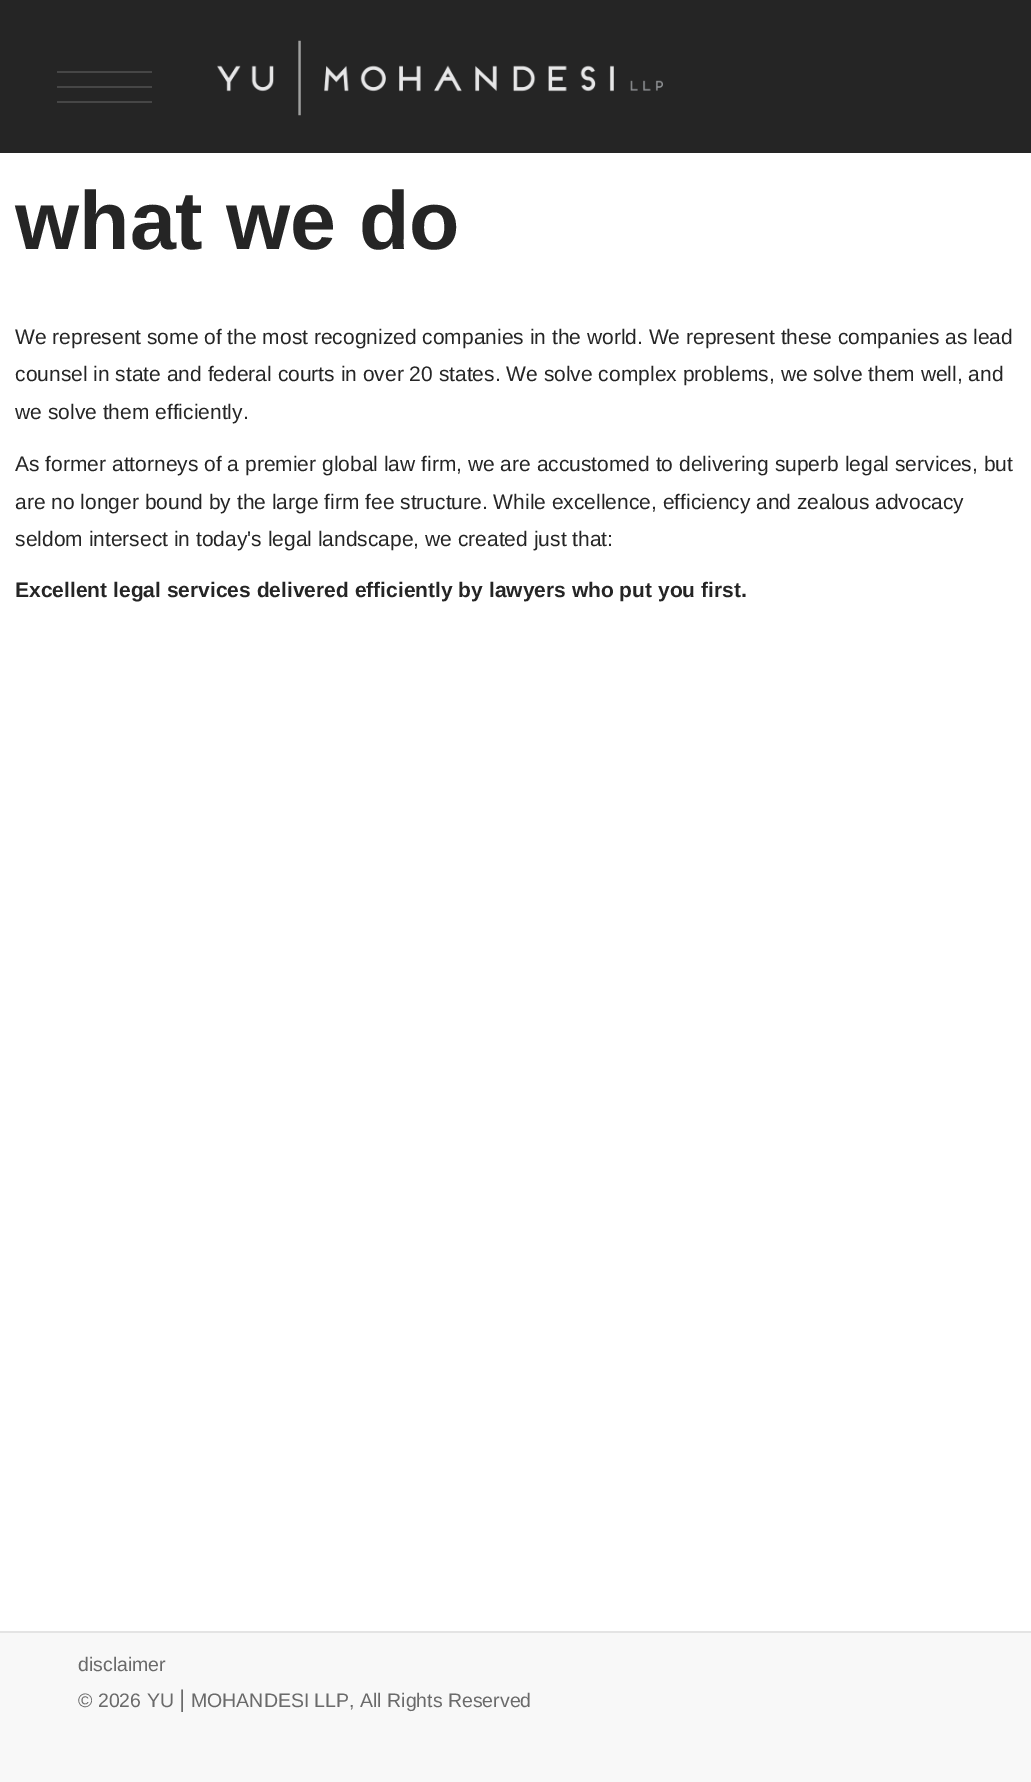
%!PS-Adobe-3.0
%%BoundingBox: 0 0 1031 1782
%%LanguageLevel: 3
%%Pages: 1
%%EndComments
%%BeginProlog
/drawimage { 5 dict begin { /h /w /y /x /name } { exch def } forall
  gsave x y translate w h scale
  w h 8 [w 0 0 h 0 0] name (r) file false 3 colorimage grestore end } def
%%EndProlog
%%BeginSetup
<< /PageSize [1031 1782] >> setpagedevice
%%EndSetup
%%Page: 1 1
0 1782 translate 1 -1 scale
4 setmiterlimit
1 setgray
0 0 1031 1782 rectfill
0.145 setgray
0 0 1031 153 rectfill
0.275 setgray
57 86 95 2 rectfill
57 71 95 2 rectfill
57 101 95 2 rectfill
(images/1.raw) 217 40 446 76 drawimage
0.973 setgray
0 1633 1031 149 rectfill
0.894 setgray
0 1631 1031 2 rectfill
/LiberationSans-Bold [82.5 0 0 -82.5 0 0] selectfont
0.145 setgray
15 249 moveto (what we do) show
/LiberationSans-Regular [21 0 0 -21 0 0] selectfont
15 344 moveto (We represent some of the most recognized companies in the world. We represent these companies as lead) show
15 381 moveto (counsel in state and federal courts in over 20 states. We solve complex problems, we solve them well, and) show
15 419 moveto (we solve them efficiently.) show
15 471 moveto (As former attorneys of a premier global law firm, we are accustomed to delivering superb legal services, but) show
15 509 moveto (are no longer bound by the large firm fee structure. While excellence, efficiency and zealous advocacy) show
15 546 moveto (seldom intersect in today's legal landscape, we created just that:) show
/LiberationSans-Bold [21 0 0 -21 0 0] selectfont
15 597 moveto (Excellent legal services delivered efficiently by lawyers who put you first.) show
/LiberationSans-Regular [19.5 0 0 -19.5 0 0] selectfont
0.416 setgray
78 1671 moveto (disclaimer) show
78 1707 moveto (© 2026 YU) show
/LiberationSans-Regular [24 0 0 -24 0 0] selectfont
179 1707 moveto (|) show
/LiberationSans-Regular [19.5 0 0 -19.5 0 0] selectfont
191 1707 moveto (MOHANDESI LLP, All Rights Reserved) show
showpage
%%EOF
